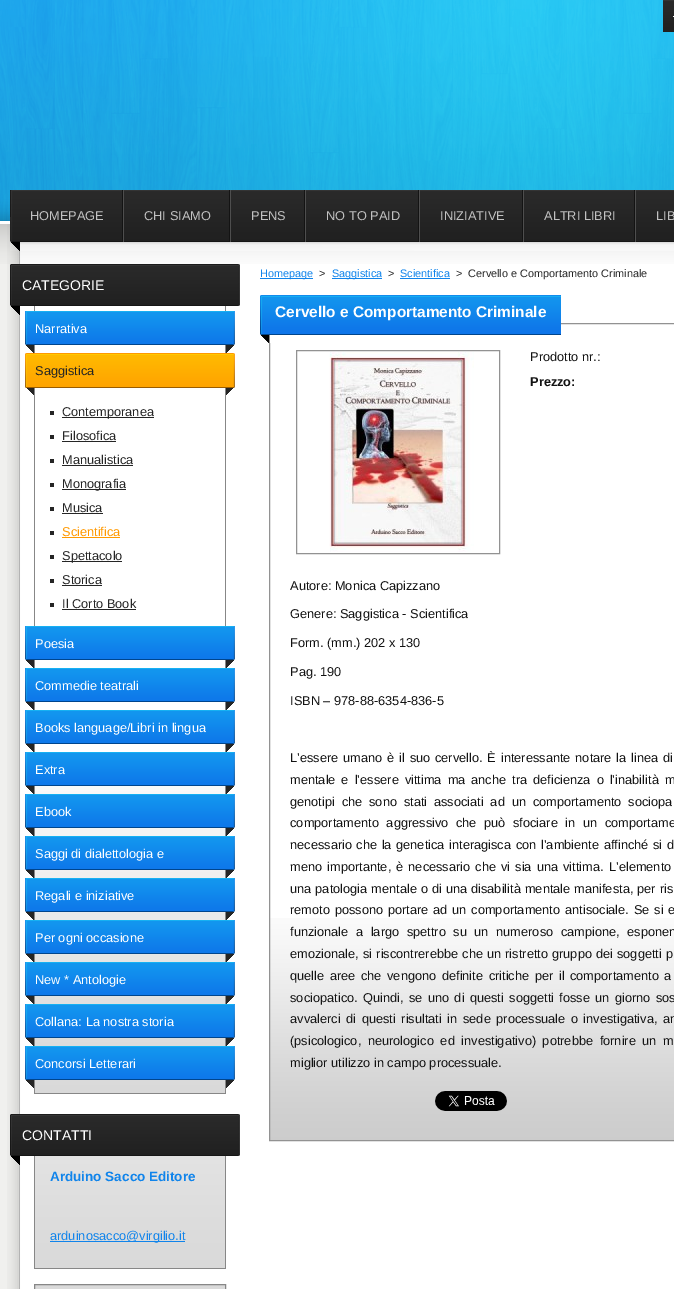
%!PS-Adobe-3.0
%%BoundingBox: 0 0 674 1289
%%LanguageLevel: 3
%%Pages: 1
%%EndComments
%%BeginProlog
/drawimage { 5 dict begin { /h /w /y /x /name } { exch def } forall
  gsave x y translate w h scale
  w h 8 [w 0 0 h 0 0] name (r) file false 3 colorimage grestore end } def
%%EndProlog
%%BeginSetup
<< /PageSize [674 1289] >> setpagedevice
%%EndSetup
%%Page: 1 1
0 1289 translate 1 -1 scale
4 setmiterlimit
0.941 0.941 0.933 setrgbcolor
0 0 674 1289 rectfill
(images/1.raw) 7 224 667 1065 drawimage
(images/2.raw) 0 0 674 264 drawimage
(images/3.raw) 663 0 11 32 drawimage
1 setgray
673 16 1 1 rectfill
(images/4.raw) 10 190 664 61 drawimage
(images/5.raw) 122 190 2 52 drawimage
(images/5.raw) 229 190 2 52 drawimage
(images/5.raw) 304 190 2 52 drawimage
(images/5.raw) 418 190 2 52 drawimage
(images/5.raw) 522 190 2 52 drawimage
(images/5.raw) 634 190 2 52 drawimage
0.529 setgray
225 306 1 788 rectfill
34 1093 192 1 rectfill
34 306 1 788 rectfill
(images/6.raw) 10 264 230 51 drawimage
(images/7.raw) 35 786 190 307 drawimage
(images/8.raw) 25 311 210 42 drawimage
(images/9.raw) 25 353 210 42 drawimage
0.145 setgray
50 411 4 4 rectfill
62 417 92 1 rectfill
50 435 4 4 rectfill
62 441 54 1 rectfill
50 459 4 4 rectfill
62 465 71 1 rectfill
50 483 4 4 rectfill
62 489 64 1 rectfill
50 507 4 4 rectfill
62 513 41 1 rectfill
50 531 4 4 rectfill
1 0.6 0 setrgbcolor
62 537 58 1 rectfill
0.145 setgray
50 555 4 4 rectfill
62 561 60 1 rectfill
50 579 4 4 rectfill
62 585 40 1 rectfill
50 603 4 4 rectfill
62 609 74 1 rectfill
(images/8.raw) 25 626 210 42 drawimage
(images/8.raw) 25 668 210 42 drawimage
(images/8.raw) 25 710 210 42 drawimage
(images/10.raw) 25 752 210 42 drawimage
(images/11.raw) 25 794 210 42 drawimage
(images/12.raw) 25 836 210 42 drawimage
(images/13.raw) 25 878 210 42 drawimage
(images/14.raw) 25 920 210 42 drawimage
(images/15.raw) 25 962 210 42 drawimage
(images/16.raw) 25 1004 210 42 drawimage
(images/17.raw) 25 1046 210 42 drawimage
(images/18.raw) 10 1114 230 51 drawimage
(images/19.raw) 35 1156 190 112 drawimage
0.529 setgray
225 1156 1 113 rectfill
34 1268 192 1 rectfill
34 1156 1 113 rectfill
0.063 0.518 0.922 setrgbcolor
50 1241 135 1 rectfill
0.855 setgray
newpath 34.5 1284.5 moveto 225.5 1284.5 lineto 225.5 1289.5 lineto 34.5 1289.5 lineto closepath gsave fill grestore
0.529 setgray
stroke
0.063 0.518 0.922 setrgbcolor
260 278 53 1 rectfill
332 278 50 1 rectfill
400 278 50 1 rectfill
(images/21.raw) 270 918 404 222 drawimage
0.573 setgray
269.5 323.5 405 817 rectstroke
(images/20.raw) 260 295 301 48 drawimage
296.5 350.5 203 203 rectstroke
(images/22.raw) 329 352 145 200 drawimage
(images/23.raw) 435 1091 72 20 drawimage
/LiberationSans-Regular [12.8 0 0 -12.8 0 0] selectfont
0.761 setgray
30 220 moveto (HOMEPAGE) show
144 220 moveto (CHI SIAMO) show
251 220 moveto (PENS) show
326 220 moveto (NO TO PAID) show
440 220 moveto (INIZIATIVE) show
544 220 moveto (ALTRI LIBRI) show
656 220 moveto (LIB) show
/LiberationSans-Regular [14 0 0 -14 0 0] selectfont
1 setgray
22 290 moveto (CATEGORIE) show
/LiberationSans-Regular [12.8 0 0 -12.8 0 0] selectfont
35 333 moveto (Narrativa) show
0.145 setgray
35 375 moveto (Saggistica) show
62 416 moveto (Contemporanea) show
62 440 moveto (Filosofica) show
62 464 moveto (Manualistica) show
62 488 moveto (Monografia) show
62 512 moveto (Musica) show
1 0.6 0 setrgbcolor
62 536 moveto (Scientifica) show
0.145 setgray
62 560 moveto (Spettacolo) show
62 584 moveto (Storica) show
62 608 moveto (Il Corto Book) show
1 setgray
35 648 moveto (Poesia) show
35 690 moveto (Commedie teatrali) show
35 732 moveto (Books language/Libri in lingua) show
35 774 moveto (Extra) show
35 816 moveto (Ebook) show
35 858 moveto (Saggi di dialettologia e) show
35 900 moveto (Regali e iniziative) show
35 942 moveto (Per ogni occasione) show
35 984 moveto (New * Antologie) show
35 1026 moveto (Collana: La nostra storia) show
35 1068 moveto (Concorsi Letterari) show
/LiberationSans-Regular [14 0 0 -14 0 0] selectfont
22 1140 moveto (CONTATTI) show
/LiberationSans-Bold [13.5 0 0 -13.5 0 0] selectfont
0.063 0.518 0.922 setrgbcolor
50 1181 moveto (Arduino Sacco Editore) show
/LiberationSans-Regular [12.8 0 0 -12.8 0 0] selectfont
50 1240 moveto (arduinosacco@virgilio.it) show
/LiberationSans-Regular [10.9 0 0 -10.9 0 0] selectfont
260 277 moveto (Homepage) show
0.145 setgray
319 277 moveto (>) show
0.063 0.518 0.922 setrgbcolor
332 277 moveto (Saggistica) show
0.145 setgray
388 277 moveto (>) show
0.063 0.518 0.922 setrgbcolor
400 277 moveto (Scientifica) show
0.145 setgray
456 277 moveto (>) show
468 277 moveto (Cervello e Comportamento Criminale) show
/LiberationSans-Bold [15.4 0 0 -15.4 0 0] selectfont
1 setgray
275 317 moveto (Cervello e Comportamento Criminale) show
/LiberationSans-Regular [12.8 0 0 -12.8 0 0] selectfont
0.071 setgray
530 361 moveto (Prodotto nr.:) show
/LiberationSans-Bold [12.8 0 0 -12.8 0 0] selectfont
530 386 moveto (Prezzo:) show
/LiberationSans-Regular [12.8 0 0 -12.8 0 0] selectfont
290 590 moveto (Autore: Monica Capizzano) show
290 618 moveto (Genere: Saggistica - Scientifica) show
290 647 moveto (Form. \(mm.\) 202 x 130) show
290 676 moveto (Pag. 190) show
290 705 moveto (ISBN – 978-88-6354-836-5) show
290 762 moveto 1.25 0 32 (L’essere umano è il suo cervello. È interessante notare la linea di) widthshow
290 784 moveto 2.4 0 32 (mentale e l’essere vittima ma anche tra deficienza o l’inabilità m) widthshow
290 806 moveto 3.25 0 32 (genotipi che sono stati associati ad un comportamento sociopa) widthshow
290 827 moveto 4 0 32 (comportamento aggressivo che può sfociare in un comportame) widthshow
290 849 moveto 1 0 32 (necessario che la genetica interagisca con l’ambiente affinché si d) widthshow
290 871 moveto 1.5 0 32 (meno importante, è necessario che vi sia una vittima. L’elemento) widthshow
290 893 moveto 0.4 0 32 (una patologia mentale o di una disabilità mentale manifesta, per ris) widthshow
290 914 moveto 1.25 0 32 (remoto possono portare ad un comportamento antisociale. Se si e) widthshow
290 936 moveto 4 0 32 (funzionale a largo spettro su un numeroso campione, esponen) widthshow
290 958 moveto 0.5 0 32 (emozionale, si riscontrerebbe che un ristretto gruppo dei soggetti p) widthshow
290 980 moveto 2 0 32 (quelle aree che vengono definite critiche per il comportamento a) widthshow
290 1002 moveto 1.8 0 32 (sociopatico. Quindi, se uno di questi soggetti fosse un giorno sos) widthshow
290 1023 moveto 2 0 32 (avvalerci di questi risultati in sede processuale o investigativa, an) widthshow
290 1045 moveto 3 0 32 (\(psicologico, neurologico ed investigativo\) potrebbe fornire un m) widthshow
290 1067 moveto (miglior utilizzo in campo processuale.) show
showpage
%%EOF
